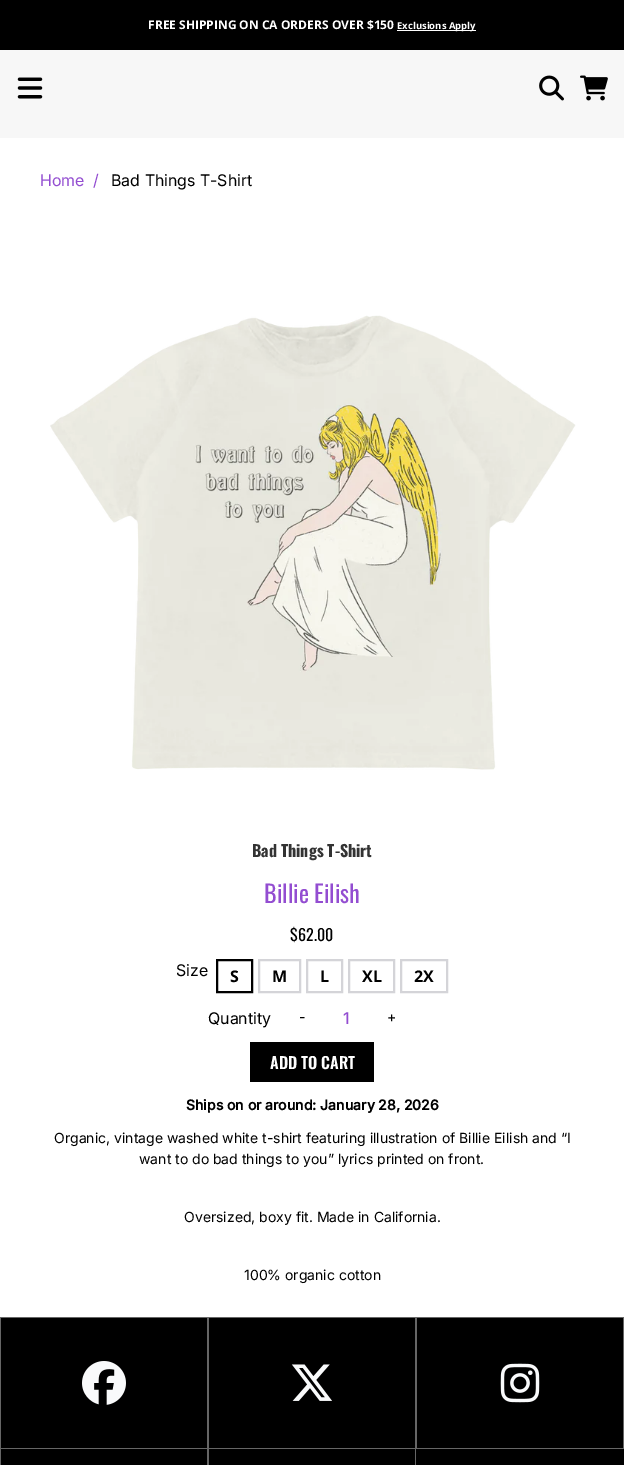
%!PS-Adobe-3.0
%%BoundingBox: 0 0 624 1465
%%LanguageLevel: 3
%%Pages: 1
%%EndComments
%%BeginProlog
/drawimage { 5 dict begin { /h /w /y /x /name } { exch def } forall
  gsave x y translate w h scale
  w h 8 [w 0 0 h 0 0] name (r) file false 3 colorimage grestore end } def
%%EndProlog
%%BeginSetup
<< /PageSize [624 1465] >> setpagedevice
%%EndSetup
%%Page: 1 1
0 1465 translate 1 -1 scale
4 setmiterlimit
1 setgray
0 0 624 1465 rectfill
0 setgray
0 0 624 50 rectfill
1 setgray
397 30 79 1 rectfill
0.969 setgray
0 50 624 88 rectfill
(images/1.raw) 17 77 26 22 drawimage
(images/2.raw) 539 75 25 26 drawimage
(images/3.raw) 580 75 28 26 drawimage
(images/4.raw) 50 315 526 455 drawimage
0 setgray
2 setlinewidth
217 960 35 32 rectstroke
0.831 0.831 0.847 setrgbcolor
259 960 41 32 rectstroke
307 960 35 32 rectstroke
349 960 45 32 rectstroke
401 960 46 32 rectstroke
0 setgray
250 1042 124 40 rectfill
1 1318 623 147 rectfill
0.4 setgray
0 1317 624 1 rectfill
207 1318 1 147 rectfill
0 1448 208 1 rectfill
0 1318 1 147 rectfill
(images/5.raw) 82 1361 44 44 drawimage
415 1318 1 147 rectfill
208 1448 208 1 rectfill
208 1318 1 147 rectfill
(images/6.raw) 291 1364 41 37 drawimage
623 1318 1 131 rectfill
416 1448 208 1 rectfill
416 1318 1 131 rectfill
(images/7.raw) 500 1363 40 40 drawimage
/OpenSans-Bold [12 0 0 -12 0 0] selectfont
1 setgray
148 29 moveto (FREE SHIPPING ON CA ORDERS OVER $150) show
/OpenSans-Bold [9.5 0 0 -9.5 0 0] selectfont
397 29 moveto (Exclusions Apply) show
/Inter-Regular [16 0 0 -16 0 0] selectfont
0.576 0.302 0.82 setrgbcolor
40 186 moveto (Home) show
93 186 moveto (/) show
0 setgray
111 186 moveto (Bad Things T-Shirt) show
/Oswald-Bold [16 0 0 -16 0 0] selectfont
0.2 setgray
252 857 moveto (Bad Things T-Shirt) show
/Oswald-Regular [24 0 0 -24 0 0] selectfont
0.576 0.302 0.82 setrgbcolor
264 903 moveto (Billie Eilish) show
/Oswald-Regular [16 0 0 -16 0 0] selectfont
0 setgray
290 941 moveto ($62.00) show
/Inter-Regular [16 0 0 -16 0 0] selectfont
176 976 moveto (Size) show
/OpenSans-Bold [16 0 0 -16 0 0] selectfont
230 982 moveto (S) show
272 982 moveto (M) show
320 982 moveto (L) show
362 982 moveto (XL) show
414 982 moveto (2X) show
/Inter-Regular [16 0 0 -16 0 0] selectfont
208 1024 moveto (Quantity) show
/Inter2-Medium [14 0 0 -14 0 0] selectfont
299 1022 moveto (-) show
/Inter-Medium [16 0 0 -16 0 0] selectfont
0.576 0.302 0.82 setrgbcolor
343 1024 moveto (1) show
/Inter2-Medium [14 0 0 -14 0 0] selectfont
0 setgray
387 1022 moveto (+) show
/Oswald-SemiBold [16 0 0 -16 0 0] selectfont
1 setgray
270 1069 moveto (ADD TO CART) show
/Inter-Bold [14 0 0 -14 0 0] selectfont
0 setgray
186 1110 moveto (Ships on or around: January 28, 2026) show
/Inter2-Regular [14 0 0 -14 0 0] selectfont
54 1143 moveto (Organic, vintage washed white t-shirt featuring illustration of Billie Eilish and “I) show
139 1164 moveto (want to do bad things to you” lyrics printed on front.) show
184 1222 moveto (Oversized, boxy fit. Made in California.) show
244 1280 moveto (100% organic cotton) show
showpage
%%EOF
